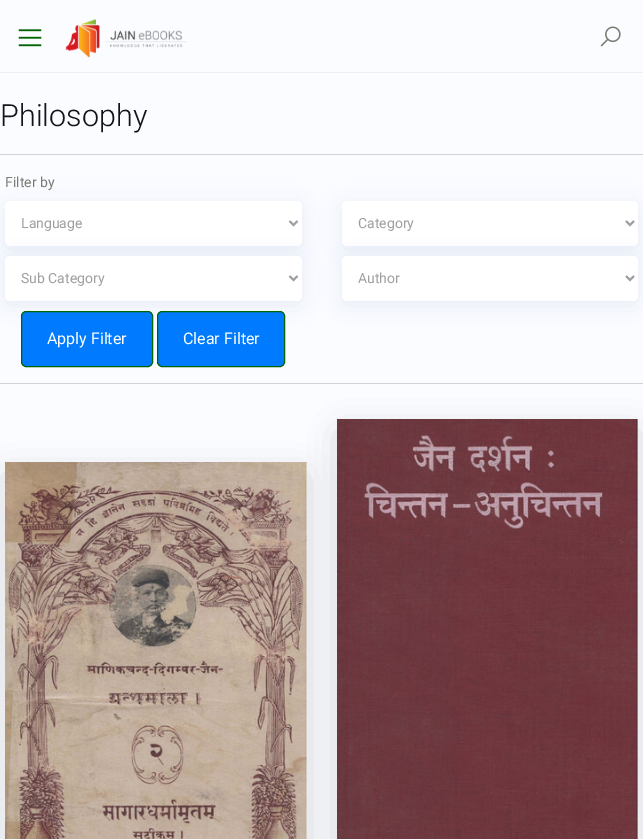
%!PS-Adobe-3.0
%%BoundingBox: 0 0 643 839
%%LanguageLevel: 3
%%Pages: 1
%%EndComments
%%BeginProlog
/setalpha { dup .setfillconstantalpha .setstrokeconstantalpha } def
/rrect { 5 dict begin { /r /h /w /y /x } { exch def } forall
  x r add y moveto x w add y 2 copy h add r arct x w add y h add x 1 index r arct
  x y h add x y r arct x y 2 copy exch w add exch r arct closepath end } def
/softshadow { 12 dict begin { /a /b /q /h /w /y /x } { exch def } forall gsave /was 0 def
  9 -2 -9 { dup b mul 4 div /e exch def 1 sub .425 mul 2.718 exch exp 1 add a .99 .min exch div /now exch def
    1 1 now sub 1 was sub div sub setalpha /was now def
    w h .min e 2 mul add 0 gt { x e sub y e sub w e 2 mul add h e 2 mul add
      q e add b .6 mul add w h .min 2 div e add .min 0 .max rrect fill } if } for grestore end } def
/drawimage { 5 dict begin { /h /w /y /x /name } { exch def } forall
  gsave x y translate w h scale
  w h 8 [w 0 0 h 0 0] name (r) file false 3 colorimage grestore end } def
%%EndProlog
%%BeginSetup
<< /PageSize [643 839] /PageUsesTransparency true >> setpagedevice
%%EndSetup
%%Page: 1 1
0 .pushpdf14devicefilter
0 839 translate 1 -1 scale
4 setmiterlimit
0.984 0.988 1 setrgbcolor
0 0 643 839 rectfill
0.929 0.929 0.941 setrgbcolor
0 72 643 1 rectfill
(images/1.raw) 18 29 24 18 drawimage
(images/2.raw) 65 19 122 39 drawimage
(images/3.raw) 600 26 21 21 drawimage
0.824 setgray
0 154 643 1 rectfill
0 383 643 1 rectfill
0.173 0.396 0.565 setrgbcolor
5 205 297 45 5 10 0.1 softshadow
1 setgray
5 201 297 45 5 rrect fill
0.627 0.62 0.62 setrgbcolor
2 setlinewidth
newpath 289.5 221 moveto 293.5 225 lineto 297.5 221 lineto stroke
0.173 0.396 0.565 setrgbcolor
342 205 296 45 5 10 0.1 softshadow
1 setgray
342 201 296 45 5 rrect fill
0.627 0.62 0.62 setrgbcolor
newpath 626 221 moveto 630 225 lineto 634 221 lineto stroke
0.173 0.396 0.565 setrgbcolor
5 260 297 45 5 10 0.1 softshadow
1 setgray
5 256 297 45 5 rrect fill
0.627 0.62 0.62 setrgbcolor
newpath 289.5 276 moveto 293.5 280 lineto 297.5 276 lineto stroke
0.173 0.396 0.565 setrgbcolor
342 260 296 45 5 10 0.1 softshadow
1 setgray
342 256 296 45 5 rrect fill
0.627 0.62 0.62 setrgbcolor
newpath 626 276 moveto 630 280 lineto 634 276 lineto stroke
0 0.482 1 setrgbcolor
21.5 311.5 131 55 4.5 rrect gsave fill grestore
0 0.392 0 setrgbcolor
1 setlinewidth
stroke
0 0.482 1 setrgbcolor
157.5 311.5 127 55 4.5 rrect gsave fill grestore
0 0.392 0 setrgbcolor
stroke
0 setgray
10 477 292 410 0 16 0.21 softshadow
(images/4.raw) 5 462 302 377 drawimage
342 434 291 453 0 16 0.21 softshadow
(images/5.raw) 337 419 301 420 drawimage
/Roboto-Light [30.5 0 0 -30.5 0 0] selectfont
0.067 0.078 0.106 setrgbcolor
0 126 moveto (Philosophy) show
/Roboto-Regular [14 0 0 -14 0 0] selectfont
0.467 0.49 0.455 setrgbcolor
5 187 moveto (Filter by) show
0.627 0.62 0.62 setrgbcolor
21 228 moveto (Language) show
358 228 moveto (Category) show
21 283 moveto (Sub Category) show
358 283 moveto (Author) show
/Roboto-Regular [16 0 0 -16 0 0] selectfont
1 setgray
47 344 moveto (Apply Filter) show
183 344 moveto (Clear Filter) show
.poppdf14devicefilter showpage
%%EOF
